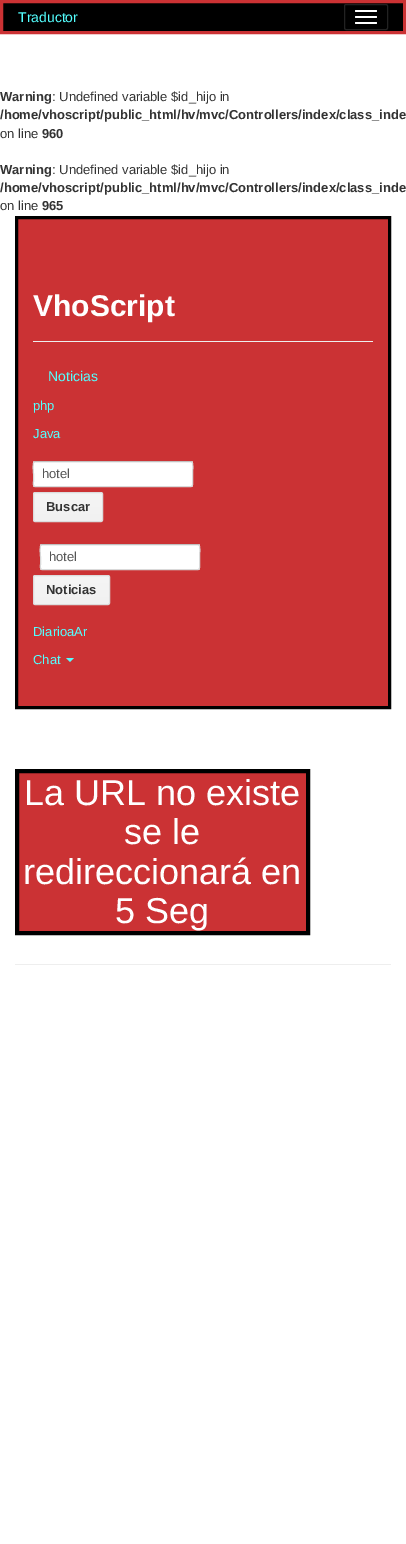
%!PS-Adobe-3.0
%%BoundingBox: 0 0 406 1544
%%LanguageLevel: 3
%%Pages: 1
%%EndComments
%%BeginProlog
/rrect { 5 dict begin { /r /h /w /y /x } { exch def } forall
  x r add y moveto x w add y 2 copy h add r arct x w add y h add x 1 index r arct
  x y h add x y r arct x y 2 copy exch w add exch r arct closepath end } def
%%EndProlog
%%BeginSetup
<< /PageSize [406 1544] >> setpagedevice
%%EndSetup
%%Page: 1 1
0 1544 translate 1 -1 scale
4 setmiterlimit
1 setgray
0 0 406 1544 rectfill
0 setgray
newpath 1.5 1.5 moveto 404.5 1.5 lineto 404.5 32.5 lineto 1.5 32.5 lineto closepath gsave fill grestore
0.796 0.196 0.204 setrgbcolor
3 setlinewidth
stroke
0.133 setgray
1 setlinewidth
344.5 4.5 43 25 1.5 rrect stroke
1 setgray
355 10 22 2 1 rrect fill
355 16 22 2 1 rrect fill
355 22 22 2 1 rrect fill
0.796 0.196 0.204 setrgbcolor
18 219 370 487 rectfill
0 setgray
3 setlinewidth
newpath 16.5 217.5 moveto 389.5 217.5 lineto 389.5 707.5 lineto 16.5 707.5 lineto closepath stroke
0.933 setgray
33 341 340 1 rectfill
1 setgray
33 461 160 26 2 rrect fill
0.753 setgray
1 setlinewidth
newpath 34 462 moveto 35 461.5 lineto 191 461.5 lineto 192 462 lineto stroke
0.851 setgray
newpath 192 462 moveto 193.5 463.5 192.5 472 192.5 474 curveto 192.5 481.5 lineto 192.5 482 193.5 486.5 191 486.5 curveto 35 486.5 lineto 32.5 486.5 33.5 482 33.5 481.5 curveto 33.5 474 lineto 33.5 472 32.5 463.5 34 462 curveto stroke
gsave
33 492 70 30 2 rrect clip newpath
gsave newpath 33 493 moveto 103 493 lineto 103 521 lineto 33 521 lineto closepath clip newpath
<< /ShadingType 2 /ColorSpace /DeviceRGB /Coords [68 493 68 521] /Extend [true true] /Function << /FunctionType 2 /Domain [0 1] /C0 [0.961 0.961 0.961] /C1 [0.945 0.945 0.945] /N 1 >> >> shfill grestore
grestore
0.863 setgray
33.5 492.5 69 29 1.5 rrect stroke
1 setgray
40 544 160 26 2 rrect fill
0.753 setgray
newpath 41 545 moveto 42 544.5 lineto 198 544.5 lineto 199 545 lineto stroke
0.851 setgray
newpath 199 545 moveto 200.5 546.5 199.5 555 199.5 557 curveto 199.5 564.5 lineto 199.5 565 200.5 569.5 198 569.5 curveto 42 569.5 lineto 39.5 569.5 40.5 565 40.5 564.5 curveto 40.5 557 lineto 40.5 555 39.5 546.5 41 545 curveto stroke
gsave
33 575 77 30 2 rrect clip newpath
gsave newpath 33 576 moveto 110 576 lineto 110 604 lineto 33 604 lineto closepath clip newpath
<< /ShadingType 2 /ColorSpace /DeviceRGB /Coords [72 576 72 604] /Extend [true true] /Function << /FunctionType 2 /Domain [0 1] /C0 [0.961 0.961 0.961] /C1 [0.945 0.945 0.945] /N 1 >> >> shfill grestore
grestore
0.863 setgray
33.5 575.5 76 29 1.5 rrect stroke
0.329 1 1 setrgbcolor
newpath 66 658 moveto 74 658 lineto 70 662 lineto closepath fill
0.933 setgray
15 964 376 1 rectfill
0.796 0.196 0.204 setrgbcolor
newpath 17 771 moveto 308 771 lineto 308 933 lineto 17 933 lineto closepath gsave fill grestore
0 setgray
4 setlinewidth
stroke
/LiberationSans-Regular [14 0 0 -14 0 0] selectfont
0.329 1 1 setrgbcolor
18 22 moveto (Traductor) show
/LiberationSans-Bold [13 0 0 -13 0 0] selectfont
0.2 setgray
0 101 moveto (Warning) show
/LiberationSans-Regular [13 0 0 -13 0 0] selectfont
52 101 moveto (: Undefined variable $id_hijo in) show
/LiberationSans-Bold [13 0 0 -13 0 0] selectfont
0 119 moveto (/home/vhoscript/public_html/hv/mvc/Controllers/index/class_inde) show
/LiberationSans-Regular [13 0 0 -13 0 0] selectfont
0 138 moveto (on line) show
/LiberationSans-Bold [13 0 0 -13 0 0] selectfont
42 138 moveto (960) show
0 174 moveto (Warning) show
/LiberationSans-Regular [13 0 0 -13 0 0] selectfont
52 174 moveto (: Undefined variable $id_hijo in) show
/LiberationSans-Bold [13 0 0 -13 0 0] selectfont
0 192 moveto (/home/vhoscript/public_html/hv/mvc/Controllers/index/class_inde) show
/LiberationSans-Regular [13 0 0 -13 0 0] selectfont
0 210 moveto (on line) show
/LiberationSans-Bold [13 0 0 -13 0 0] selectfont
42 210 moveto (965) show
/LiberationSans-Bold [30 0 0 -30 0 0] selectfont
1 setgray
33 316 moveto (VhoScript) show
/LiberationSans-Regular [14 0 0 -14 0 0] selectfont
0.329 1 1 setrgbcolor
48 381 moveto (Noticias) show
/LiberationSans-Regular [13 0 0 -13 0 0] selectfont
33 410 moveto (php) show
33 438 moveto (Java) show
0.333 setgray
42 478 moveto (hotel) show
/LiberationSans-Bold [13 0 0 -13 0 0] selectfont
0.2 setgray
46 511 moveto (Buscar) show
/LiberationSans-Regular [13 0 0 -13 0 0] selectfont
0.333 setgray
49 561 moveto (hotel) show
/LiberationSans-Bold [13 0 0 -13 0 0] selectfont
0.2 setgray
46 594 moveto (Noticias) show
/LiberationSans-Regular [13 0 0 -13 0 0] selectfont
0.329 1 1 setrgbcolor
33 636 moveto (DiarioaAr) show
33 664 moveto (Chat) show
/LiberationSans-Regular [36 0 0 -36 0 0] selectfont
1 setgray
24 805 moveto (La URL no existe) show
124 844 moveto (se le) show
23 884 moveto (redireccionará en) show
115 923 moveto (5 Seg) show
showpage
%%EOF
